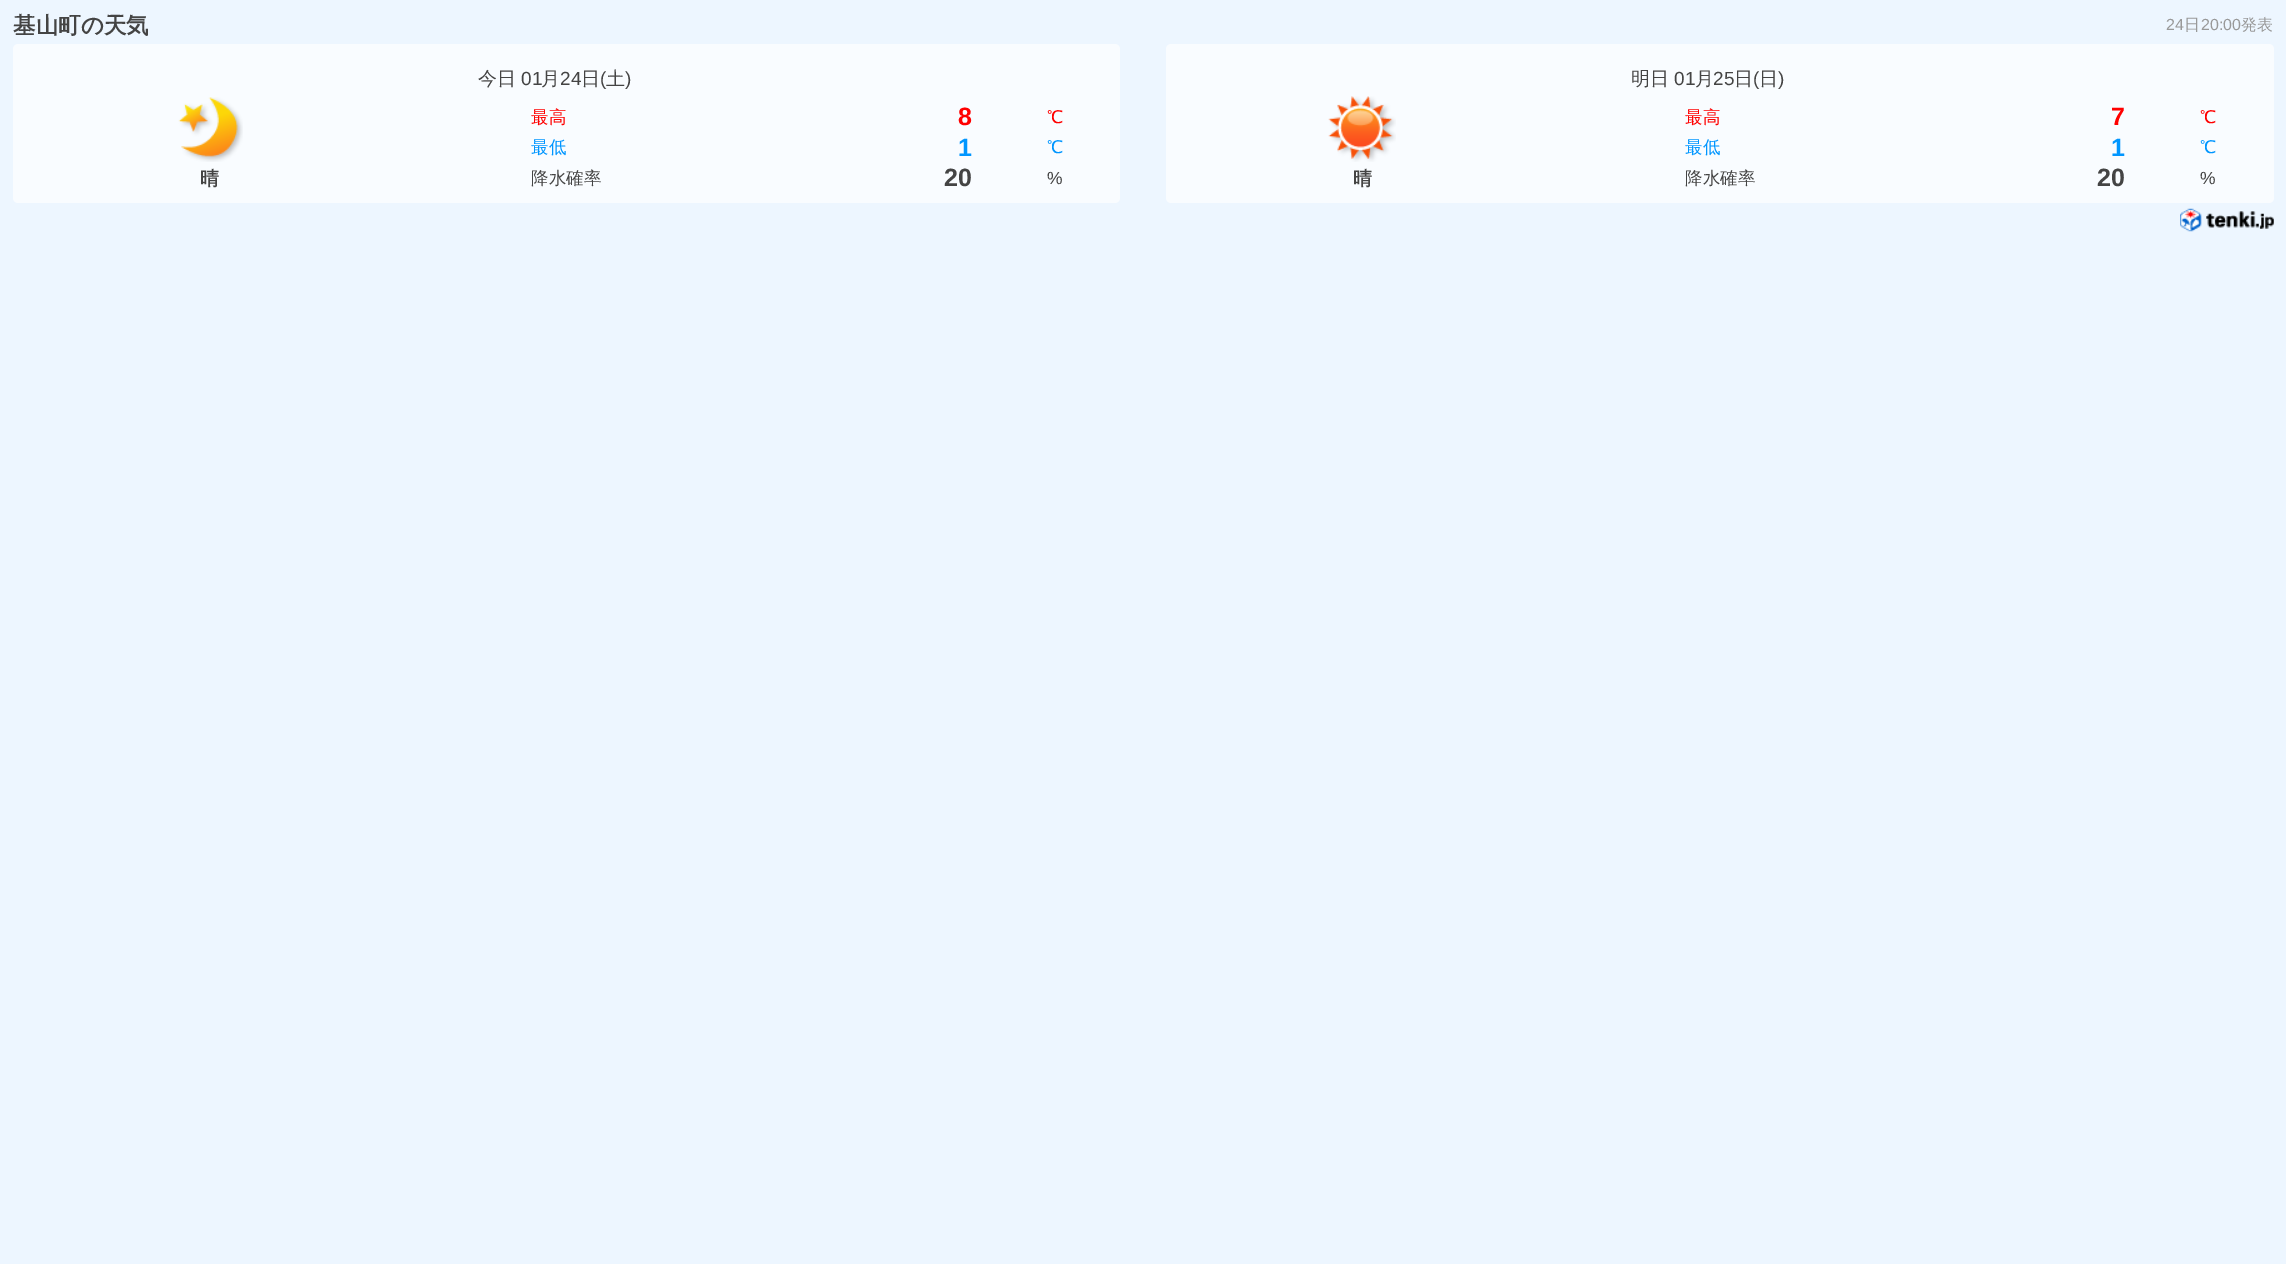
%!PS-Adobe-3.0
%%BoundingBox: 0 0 2286 1264
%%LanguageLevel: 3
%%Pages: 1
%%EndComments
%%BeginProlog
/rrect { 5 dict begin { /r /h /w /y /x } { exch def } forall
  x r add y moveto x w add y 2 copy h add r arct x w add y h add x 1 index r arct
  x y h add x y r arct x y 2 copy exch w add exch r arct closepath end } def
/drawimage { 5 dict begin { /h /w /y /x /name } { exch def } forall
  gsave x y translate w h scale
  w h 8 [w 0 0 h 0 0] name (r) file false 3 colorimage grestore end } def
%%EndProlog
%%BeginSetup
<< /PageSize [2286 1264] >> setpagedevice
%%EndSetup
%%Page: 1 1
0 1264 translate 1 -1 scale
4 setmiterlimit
0.929 0.965 1 setrgbcolor
0 0 2286 1264 rectfill
0.976 0.988 1 setrgbcolor
13 44 1107 159 5 rrect fill
(images/1.raw) 178 97 65 65 drawimage
1166 44 1108 159 5 rrect fill
(images/2.raw) 1328 96 68 66 drawimage
(images/3.raw) 2180 208 94 24 drawimage
/WenQuanYiZenHei-Bold [22.5 0 0 -22.5 0 0] selectfont
0.267 setgray
13 33 moveto (基山町の天気) show
/LiberationSans-Regular [16 0 0 -16 0 0] selectfont
0.6 setgray
2166 30 moveto (24) show
/WenQuanYiZenHei-Medium [16 0 0 -16 0 0] selectfont
2184 30 moveto (日) show
/LiberationSans-Regular [16 0 0 -16 0 0] selectfont
2201 30 moveto (20:00) show
/WenQuanYiZenHei-Medium [16 0 0 -16 0 0] selectfont
2241 30 moveto (発表) show
/WenQuanYiZenHei-Medium [19 0 0 -19 0 0] selectfont
0.267 setgray
478 85 moveto (今日) show
/LiberationSans-Regular [19 0 0 -19 0 0] selectfont
521 85 moveto (01) show
/WenQuanYiZenHei-Medium [19 0 0 -19 0 0] selectfont
541 85 moveto (月) show
/LiberationSans-Regular [19 0 0 -19 0 0] selectfont
560 85 moveto (24) show
/WenQuanYiZenHei-Medium [19 0 0 -19 0 0] selectfont
581 85 moveto (日) show
/LiberationSans-Regular [19 0 0 -19 0 0] selectfont
600 85 moveto (\() show
/WenQuanYiZenHei-Medium [19 0 0 -19 0 0] selectfont
606 85 moveto (土) show
/LiberationSans-Regular [19 0 0 -19 0 0] selectfont
625 85 moveto (\)) show
/WenQuanYiZenHei-Bold [19 0 0 -19 0 0] selectfont
200 185 moveto (晴) show
/WenQuanYiZenHei-Medium [17.5 0 0 -17.5 0 0] selectfont
1 0 0 setrgbcolor
531 123 moveto (最高) show
/LiberationSans-Bold [25 0 0 -25 0 0] selectfont
958 125 moveto (8) show
/WenQuanYiZenHei-Medium [17.5 0 0 -17.5 0 0] selectfont
1047 123 moveto (℃) show
0 0.588 1 setrgbcolor
531 153 moveto (最低) show
/LiberationSans-Bold [25 0 0 -25 0 0] selectfont
958 156 moveto (1) show
/WenQuanYiZenHei-Medium [17.5 0 0 -17.5 0 0] selectfont
1047 153 moveto (℃) show
0.267 setgray
531 184 moveto (降水確率) show
/LiberationSans-Bold [25 0 0 -25 0 0] selectfont
944 186 moveto (20) show
/LiberationSans-Regular [17.5 0 0 -17.5 0 0] selectfont
1047 184 moveto (%) show
/WenQuanYiZenHei-Medium [19 0 0 -19 0 0] selectfont
1631 85 moveto (明日) show
/LiberationSans-Regular [19 0 0 -19 0 0] selectfont
1674 85 moveto (01) show
/WenQuanYiZenHei-Medium [19 0 0 -19 0 0] selectfont
1695 85 moveto (月) show
/LiberationSans-Regular [19 0 0 -19 0 0] selectfont
1713 85 moveto (25) show
/WenQuanYiZenHei-Medium [19 0 0 -19 0 0] selectfont
1734 85 moveto (日) show
/LiberationSans-Regular [19 0 0 -19 0 0] selectfont
1753 85 moveto (\() show
/WenQuanYiZenHei-Medium [19 0 0 -19 0 0] selectfont
1759 85 moveto (日) show
/LiberationSans-Regular [19 0 0 -19 0 0] selectfont
1778 85 moveto (\)) show
/WenQuanYiZenHei-Bold [19 0 0 -19 0 0] selectfont
1353 185 moveto (晴) show
/WenQuanYiZenHei-Medium [17.5 0 0 -17.5 0 0] selectfont
1 0 0 setrgbcolor
1685 123 moveto (最高) show
/LiberationSans-Bold [25 0 0 -25 0 0] selectfont
2111 125 moveto (7) show
/WenQuanYiZenHei-Medium [17.5 0 0 -17.5 0 0] selectfont
2200 123 moveto (℃) show
0 0.588 1 setrgbcolor
1685 153 moveto (最低) show
/LiberationSans-Bold [25 0 0 -25 0 0] selectfont
2111 156 moveto (1) show
/WenQuanYiZenHei-Medium [17.5 0 0 -17.5 0 0] selectfont
2200 153 moveto (℃) show
0.267 setgray
1685 184 moveto (降水確率) show
/LiberationSans-Bold [25 0 0 -25 0 0] selectfont
2097 186 moveto (20) show
/LiberationSans-Regular [17.5 0 0 -17.5 0 0] selectfont
2200 184 moveto (%) show
showpage
%%EOF
